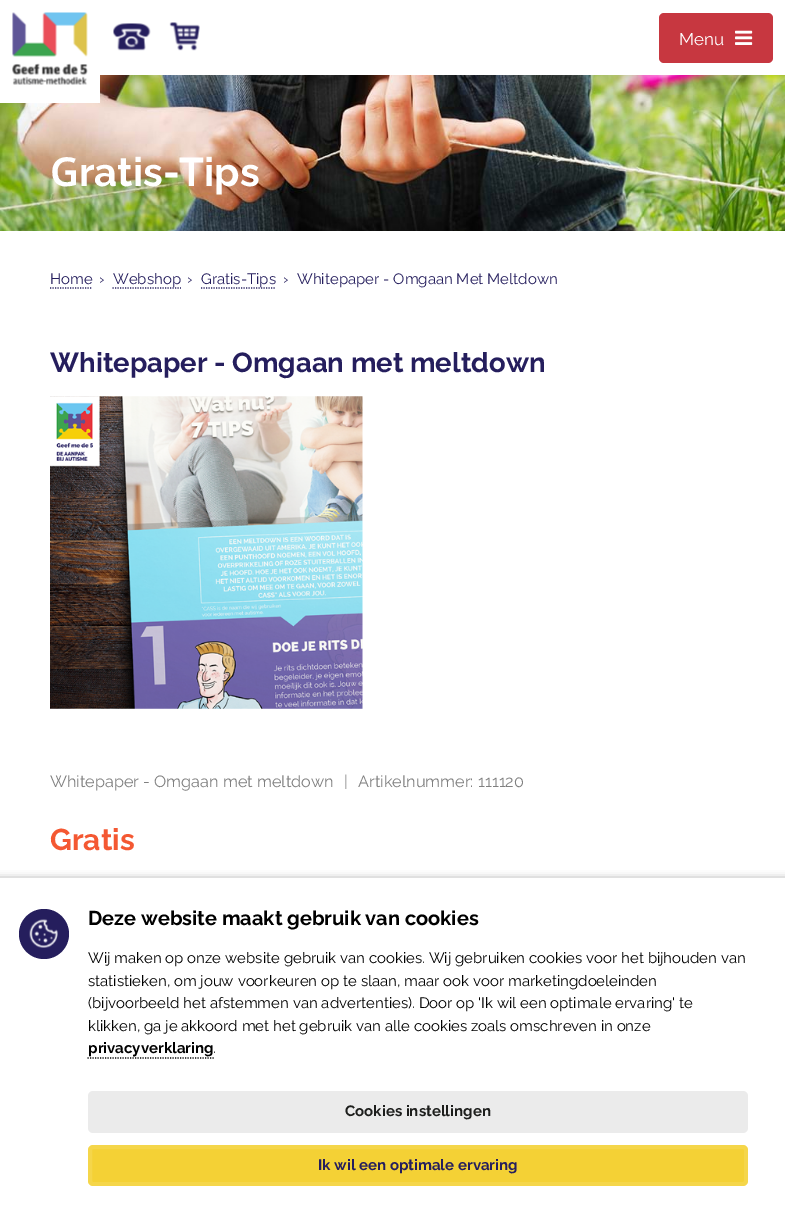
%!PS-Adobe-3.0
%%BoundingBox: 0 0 785 1211
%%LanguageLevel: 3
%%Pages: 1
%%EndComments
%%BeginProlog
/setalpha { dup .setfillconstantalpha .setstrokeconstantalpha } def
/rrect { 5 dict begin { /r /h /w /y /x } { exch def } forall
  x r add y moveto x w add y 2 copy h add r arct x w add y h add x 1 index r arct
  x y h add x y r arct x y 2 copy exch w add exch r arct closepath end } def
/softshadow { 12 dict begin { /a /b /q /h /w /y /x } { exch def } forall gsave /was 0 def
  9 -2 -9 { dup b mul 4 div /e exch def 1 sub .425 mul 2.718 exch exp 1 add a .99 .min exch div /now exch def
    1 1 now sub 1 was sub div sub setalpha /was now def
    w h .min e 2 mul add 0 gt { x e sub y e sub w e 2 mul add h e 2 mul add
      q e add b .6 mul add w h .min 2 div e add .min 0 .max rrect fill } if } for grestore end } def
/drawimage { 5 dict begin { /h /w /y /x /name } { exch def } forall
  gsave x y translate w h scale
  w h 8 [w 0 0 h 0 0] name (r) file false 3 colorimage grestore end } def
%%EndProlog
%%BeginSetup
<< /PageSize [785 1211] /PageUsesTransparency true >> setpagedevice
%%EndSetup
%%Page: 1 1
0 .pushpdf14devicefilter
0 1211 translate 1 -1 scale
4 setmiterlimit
1 setgray
0 0 785 1211 rectfill
(images/5.raw) 0 75 785 156 drawimage
0 75 100 28 rectfill
(images/1.raw) 12 12 76 73 drawimage
(images/2.raw) 113 23 38 28 drawimage
(images/3.raw) 169 22 31 29 drawimage
0.78 0.216 0.251 setrgbcolor
659 13 114 50 5 rrect fill
(images/4.raw) 735 30 18 15 drawimage
0.145 0.118 0.365 setrgbcolor
1.2 setlinewidth
[1.25 1.25] 0 setdash
newpath 50 288 moveto 92.5 288 lineto stroke
newpath 112.5 288 moveto 181 288 lineto stroke
newpath 201 288 moveto 276 288 lineto stroke
(images/6.raw) 50 396 313 313 drawimage
0 setgray
-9 879 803 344 0 4 0.4 softshadow
1 setgray
0 878 785 333 rectfill
0.145 0.118 0.365 setrgbcolor
newpath 44 934 25 0 360 arc closepath fill
(images/7.raw) 29 919 29 29 drawimage
0 setgray
newpath 87.5 1058 moveto 214 1058 lineto stroke
0.922 setgray
88 1091 660 42 5 rrect fill
0.957 0.82 0.208 setrgbcolor
88 1145 660 41 5 rrect fill
0.1 setalpha
1 setgray
4 setlinewidth
[] 0 setdash
90 1147 656 37 3 rrect stroke
/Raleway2-Thin [17 0 0 -17 0 0] selectfont
1 setalpha
679 45 moveto (Menu) show
/NotoSans-SemiBold [40 0 0 -40 0 0] selectfont
50 186 moveto (G) show
/Raleway-Thin [40 0 0 -40 0 0] selectfont
79 186 moveto (ratis-Tips) show
/Raleway2-Thin [15 0 0 -15 0 0] selectfont
0.145 0.118 0.365 setrgbcolor
50 284 moveto (Home) show
99 284 moveto (›) show
113 284 moveto (Webshop) show
187 284 moveto (›) show
201 284 moveto (Gratis-Tips) show
283 284 moveto (›) show
297 284 moveto (Whitepaper - Omgaan Met Meltdown) show
/Raleway-Thin [27.5 0 0 -27.5 0 0] selectfont
50 372 moveto (Whitepaper - Omgaan met meltdown) show
/Raleway2-Thin [16.25 0 0 -16.25 0 0] selectfont
0.502 setgray
50 787 moveto (Whitepaper - Omgaan met meltdown) show
344 787 moveto (|) show
358 787 moveto (Artikelnummer: 111120) show
/Raleway-Thin [30 0 0 -30 0 0] selectfont
0.957 0.345 0.196 setrgbcolor
50 850 moveto (Gratis) show
/Raleway-Thin [20 0 0 -20 0 0] selectfont
0 setgray
88 925 moveto (Deze website maakt gebruik van cookies) show
/Raleway2-Thin [15 0 0 -15 0 0] selectfont
88 963 moveto (Wij maken op onze website gebruik van cookies. Wij gebruiken cookies voor het bijhouden van) show
88 986 moveto (statistieken, om jouw voorkeuren op te slaan, maar ook voor marketingdoeleinden) show
88 1008 moveto (\(bijvoorbeeld het afstemmen van advertenties\). Door op 'Ik wil een optimale ervaring' te) show
88 1031 moveto (klikken, ga je akkoord met het gebruik van alle cookies zoals omschreven in onze) show
/Raleway-Thin [15 0 0 -15 0 0] selectfont
88 1053 moveto (privacyverklaring) show
/Raleway2-Thin [15 0 0 -15 0 0] selectfont
213 1053 moveto (.) show
/Raleway-Thin [15 0 0 -15 0 0] selectfont
0.114 0.118 0.11 setrgbcolor
345 1116 moveto (Cookies instellingen) show
0.145 0.118 0.365 setrgbcolor
318 1170 moveto (Ik wil een optimale ervaring) show
.poppdf14devicefilter showpage
%%EOF
